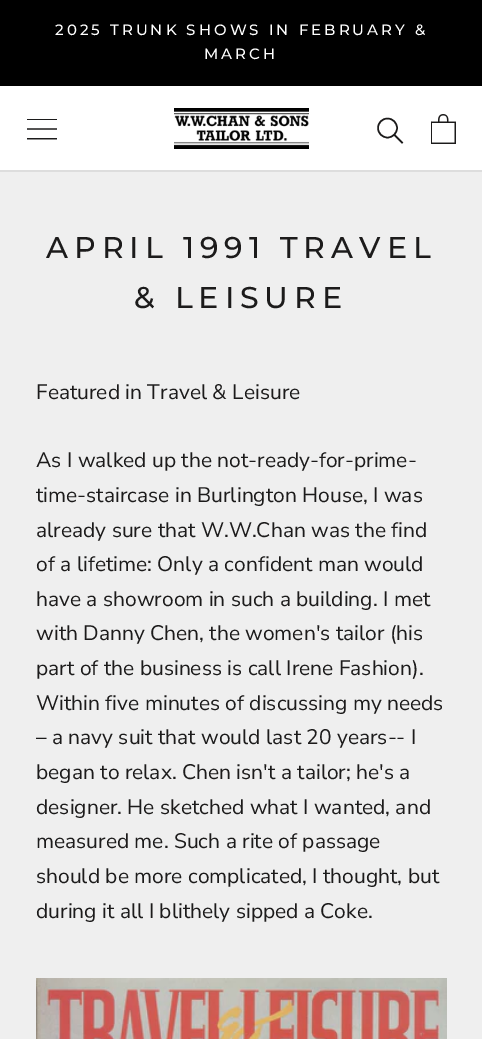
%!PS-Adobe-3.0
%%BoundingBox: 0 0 482 1039
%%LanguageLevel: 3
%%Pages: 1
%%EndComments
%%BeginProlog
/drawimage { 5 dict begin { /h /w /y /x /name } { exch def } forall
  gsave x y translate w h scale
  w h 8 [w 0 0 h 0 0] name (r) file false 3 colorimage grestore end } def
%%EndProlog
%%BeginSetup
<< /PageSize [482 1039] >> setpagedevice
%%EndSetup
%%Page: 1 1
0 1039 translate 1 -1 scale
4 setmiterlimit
0.937 setgray
0 0 482 1039 rectfill
0 setgray
0 0 482 86 rectfill
1 setgray
0 86 482 84 rectfill
0.867 setgray
0 170 482 2 rectfill
(images/1.raw) 27 119 30 21 drawimage
(images/2.raw) 174 108 135 41 drawimage
0.11 0.106 0.106 setrgbcolor
1.5 setlinewidth
2 setlinecap
newpath 402 142.5 moveto 394.5 135 lineto stroke
0 setlinecap
newpath 387.5 128 9.5 0 360 arc closepath stroke
(images/3.raw) 431 114 25 30 drawimage
(images/4.raw) 36 978 411 61 drawimage
/Montserrat-Medium [15 0 0 -15 0 0] selectfont
1 setgray
55 35 moveto 3 0 (2025 TRUNK SHOWS IN FEBRUARY &) ashow
204 59 moveto 3 0 (MARCH) ashow
/Montserrat-Medium [30 0 0 -30 0 0] selectfont
0.11 0.106 0.106 setrgbcolor
46 258 moveto 6 0 (APRIL 1991 TRAVEL) ashow
134 308 moveto 6 0 (& LEISURE) ashow
/NunitoSans-Regular [21 0 0 -21 0 0] selectfont
36 399 moveto (Featured in Travel & Leisure) show
36 467 moveto (As I walked up the not-ready-for-prime-) show
36 502 moveto (time-staircase in Burlington House, I was) show
36 537 moveto (already sure that W.W.Chan was the find) show
36 571 moveto (of a lifetime: Only a confident man would) show
36 606 moveto (have a showroom in such a building. I met) show
36 640 moveto (with Danny Chen, the women's tailor \(his) show
36 675 moveto (part of the business is call Irene Fashion\).) show
36 710 moveto (Within five minutes of discussing my needs) show
36 744 moveto (– a navy suit that would last 20 years-- I) show
36 779 moveto (began to relax. Chen isn't a tailor; he's a) show
36 814 moveto (designer. He sketched what I wanted, and) show
36 848 moveto (measured me. Such a rite of passage) show
36 883 moveto (should be more complicated, I thought, but) show
36 918 moveto (during it all I blithely sipped a Coke.) show
showpage
%%EOF
